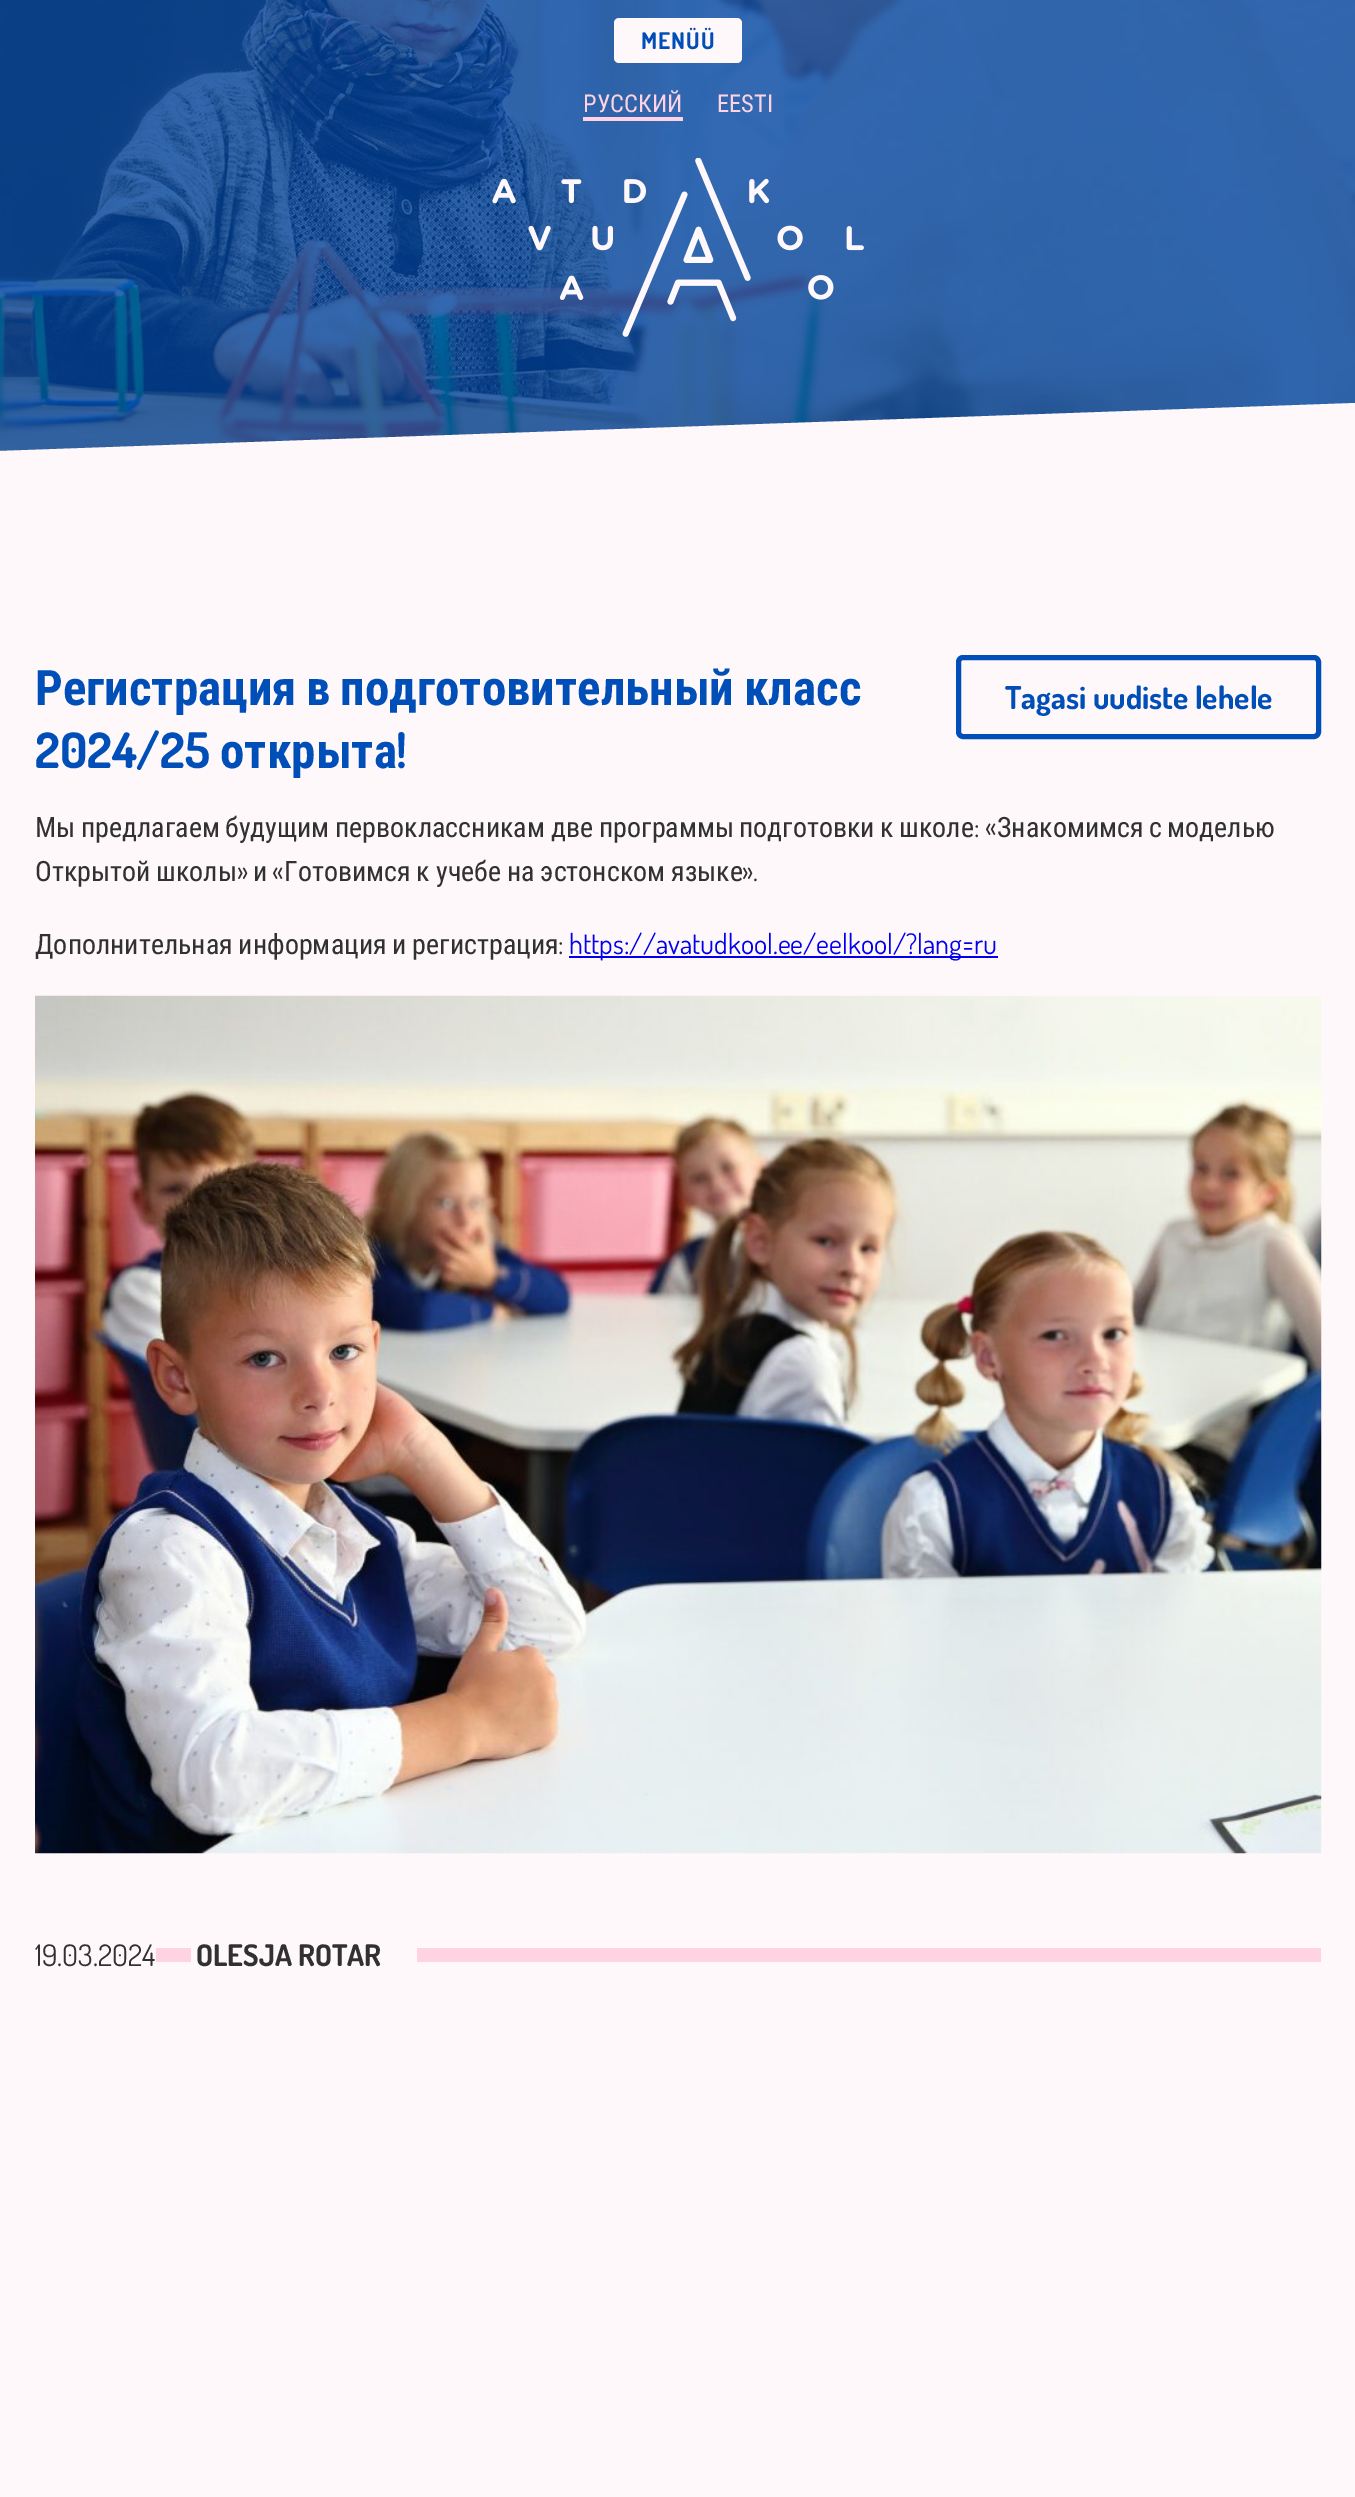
%!PS-Adobe-3.0
%%BoundingBox: 0 0 1355 2497
%%LanguageLevel: 3
%%Pages: 1
%%EndComments
%%BeginProlog
/rrect { 5 dict begin { /r /h /w /y /x } { exch def } forall
  x r add y moveto x w add y 2 copy h add r arct x w add y h add x 1 index r arct
  x y h add x y r arct x y 2 copy exch w add exch r arct closepath end } def
/drawimage { 5 dict begin { /h /w /y /x /name } { exch def } forall
  gsave x y translate w h scale
  w h 8 [w 0 0 h 0 0] name (r) file false 3 colorimage grestore end } def
%%EndProlog
%%BeginSetup
<< /PageSize [1355 2497] >> setpagedevice
%%EndSetup
%%Page: 1 1
0 2497 translate 1 -1 scale
4 setmiterlimit
1 0.973 0.98 setrgbcolor
0 0 1355 2497 rectfill
(images/1.raw) 0 0 1355 451 drawimage
(images/2.raw) 492 158 372 179 drawimage
newpath 0 451 moveto 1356 403 lineto 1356 578 lineto 0 626 lineto closepath fill
614 18 128 45 5 rrect fill
1 0.827 0.882 setrgbcolor
583 117 100 4 rectfill
0 0.31 0.722 setrgbcolor
5 setlinewidth
958.5 657.5 360 79 4.5 rrect stroke
0 0 0.933 setrgbcolor
569 956 429 2 rectfill
(images/3.raw) 35 995 1287 859 drawimage
1 0.827 0.882 setrgbcolor
156 1948 1165 14 rectfill
1 0.973 0.98 setrgbcolor
191 1948 226 14 rectfill
/Dosis-Bold [23 0 0 -23 0 0] selectfont
0 0.31 0.722 setrgbcolor
641 49 moveto 1 0 (MENÜÜ) ashow
/RobotoCondensed-Regular [24.5 0 0 -24.5 0 0] selectfont
1 0.827 0.882 setrgbcolor
583 112 moveto (РУССКИЙ) show
717 112 moveto (EESTI) show
/RobotoCondensed-Bold [49 0 0 -49 0 0] selectfont
0 0.31 0.722 setrgbcolor
35 705 moveto -1.5 0 32 (Регистрация в подготовительный класс) widthshow
/Dosis-Bold [49 0 0 -49 0 0] selectfont
35 768 moveto (2024/25) show
/RobotoCondensed-Bold [49 0 0 -49 0 0] selectfont
220 768 moveto (открыта) show
/Dosis-Bold [49 0 0 -49 0 0] selectfont
396 768 moveto (!) show
/Dosis-Bold [31.5 0 0 -31.5 0 0] selectfont
1005 709 moveto (Tagasi uudiste lehele) show
/RobotoCondensed-Regular [28 0 0 -28 0 0] selectfont
0.192 setgray
35 837 moveto (Мы) show
81 837 moveto (предлагаем) show
225 837 moveto (будущим) show
335 837 moveto (первоклассникам) show
551 837 moveto (две) show
599 837 moveto (программы) show
739 837 moveto (подготовки) show
880 837 moveto (к) show
899 837 moveto (школе) show
/Dosis-Regular [28 0 0 -28 0 0] selectfont
974 837 moveto (: «) show
/RobotoCondensed-Regular [28 0 0 -28 0 0] selectfont
997 837 moveto (Знакомимся) show
1149 837 moveto (с) show
1167 837 moveto (моделью) show
35 881 moveto -0.5 0 32 (Открытой школы) widthshow
/Dosis-Regular [28 0 0 -28 0 0] selectfont
237 881 moveto (») show
/RobotoCondensed-Regular [28 0 0 -28 0 0] selectfont
253 881 moveto (и) show
/Dosis-Regular [28 0 0 -28 0 0] selectfont
272 881 moveto («) show
/RobotoCondensed-Regular [28 0 0 -28 0 0] selectfont
284 881 moveto -0.5 0 32 (Готовимся к учебе на эстонском языке) widthshow
/Dosis-Regular [28 0 0 -28 0 0] selectfont
742 881 moveto (».) show
/RobotoCondensed-Regular [28 0 0 -28 0 0] selectfont
35 954 moveto -0.5 0 32 (Дополнительная информация и регистрация) widthshow
/Dosis-Regular [28 0 0 -28 0 0] selectfont
558 954 moveto (:) show
0 0 0.933 setrgbcolor
569 954 moveto (https://avatudkool.ee/eelkool/?lang=ru) show
/Dosis-Regular [29.75 0 0 -29.75 0 0] selectfont
0.192 setgray
35 1966 moveto (19.03.2024) show
/Dosis-Bold [29.75 0 0 -29.75 0 0] selectfont
196 1966 moveto (OLESJA ROTAR) show
showpage
%%EOF
